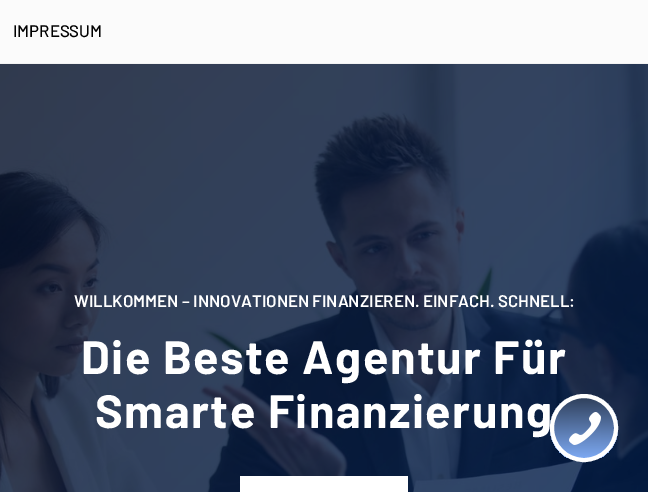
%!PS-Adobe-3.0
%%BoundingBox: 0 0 648 492
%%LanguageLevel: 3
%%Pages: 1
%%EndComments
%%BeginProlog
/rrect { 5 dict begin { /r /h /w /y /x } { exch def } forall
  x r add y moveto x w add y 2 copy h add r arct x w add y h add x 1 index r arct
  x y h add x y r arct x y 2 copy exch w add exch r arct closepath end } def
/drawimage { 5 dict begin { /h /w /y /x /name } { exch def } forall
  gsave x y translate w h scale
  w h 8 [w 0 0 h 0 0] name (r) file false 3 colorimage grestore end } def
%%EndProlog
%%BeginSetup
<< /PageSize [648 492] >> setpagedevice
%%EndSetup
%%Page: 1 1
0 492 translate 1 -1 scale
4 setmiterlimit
1 setgray
0 0 648 492 rectfill
0.949 setgray
-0.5 -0.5 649 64 rectstroke
0.984 setgray
0 0 648 63 rectfill
(images/1.raw) 0 64 648 428 drawimage
1 setgray
240 476 168 16 rectfill
gsave
550 394 68 68 34 rrect clip newpath
gsave newpath 550 398 moveto 618 398 lineto 618 458 lineto 550 458 lineto closepath clip newpath
<< /ShadingType 2 /ColorSpace /DeviceRGB /Coords [584 398 584 458] /Extend [true true] /Function << /FunctionType 2 /Domain [0 1] /C0 [0.188 0.255 0.365] /C1 [0.49 0.663 0.949] /N 1 >> >> shfill grestore
grestore
4 setlinewidth
newpath 584 428 32 0 360 arc closepath stroke
(images/2.raw) 569 412 32 33 drawimage
/Barlow-Medium [16.75 0 0 -16.75 0 0] selectfont
0 setgray
13 37 moveto (IMPRESSUM) show
/Barlow-SemiBold [16.85 0 0 -16.85 0 0] selectfont
1 setgray
74 307 moveto (WILLKOMMEN – INNOVATIONEN FINANZIEREN. EINFACH. SCHNELL:) show
/Barlow-Bold [46.75 0 0 -46.75 0 0] selectfont
81 374 moveto 1.5 0 (Die Beste Agentur Für) ashow
95 428 moveto 1.5 0 (Smarte Finanzierung) ashow
showpage
%%EOF
